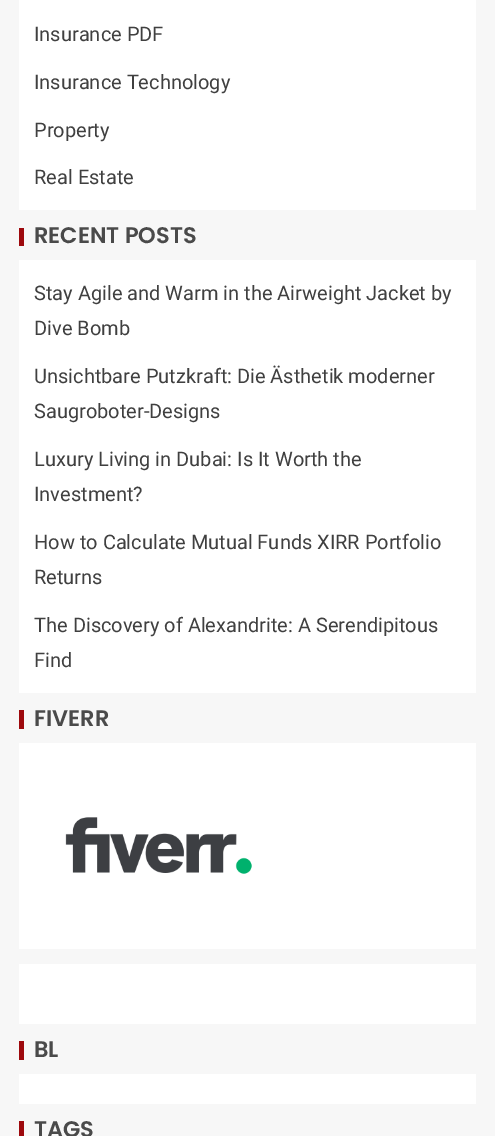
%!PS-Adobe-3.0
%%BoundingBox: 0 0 495 1136
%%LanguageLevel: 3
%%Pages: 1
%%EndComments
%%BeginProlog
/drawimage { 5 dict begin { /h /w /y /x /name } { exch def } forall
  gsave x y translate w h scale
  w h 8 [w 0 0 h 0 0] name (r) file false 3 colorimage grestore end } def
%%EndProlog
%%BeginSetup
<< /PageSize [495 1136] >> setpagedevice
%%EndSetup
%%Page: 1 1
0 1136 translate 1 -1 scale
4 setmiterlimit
0.969 setgray
0 0 495 1136 rectfill
1 setgray
19 0 457 210 rectfill
0.616 0.035 0.051 setrgbcolor
19 228 5 18 rectfill
1 setgray
19 260 457 433 rectfill
0.616 0.035 0.051 setrgbcolor
19 710 5 19 rectfill
1 setgray
19 743 457 206 rectfill
(images/1.raw) 65 817 187 57 drawimage
19 964 457 60 rectfill
0.616 0.035 0.051 setrgbcolor
19 1041 5 19 rectfill
1 setgray
19 1074 457 30 rectfill
0.616 0.035 0.051 setrgbcolor
19 1121 5 15 rectfill
/Roboto-Regular [20 0 0 -20 0 0] selectfont
0.251 setgray
34 41 moveto (Insurance PDF) show
34 89 moveto (Insurance Technology) show
34 137 moveto (Property) show
34 184 moveto (Real Estate) show
/Poppins-SemiBold [22.5 0 0 -22.5 0 0] selectfont
0.29 setgray
34 243 moveto (RECENT POSTS) show
/Roboto-Regular [20 0 0 -20 0 0] selectfont
0.251 setgray
34 300 moveto (Stay Agile and Warm in the Airweight Jacket by) show
34 335 moveto (Dive Bomb) show
34 383 moveto (Unsichtbare Putzkraft: Die Ästhetik moderner) show
34 418 moveto (Saugroboter-Designs) show
34 466 moveto (Luxury Living in Dubai: Is It Worth the) show
34 501 moveto (Investment?) show
34 549 moveto (How to Calculate Mutual Funds XIRR Portfolio) show
34 584 moveto (Returns) show
34 632 moveto (The Discovery of Alexandrite: A Serendipitous) show
34 667 moveto (Find) show
/Poppins-SemiBold [22.5 0 0 -22.5 0 0] selectfont
0.29 setgray
34 726 moveto (FIVERR) show
34 1057 moveto (BL) show
34 1137 moveto (TAGS) show
showpage
%%EOF
